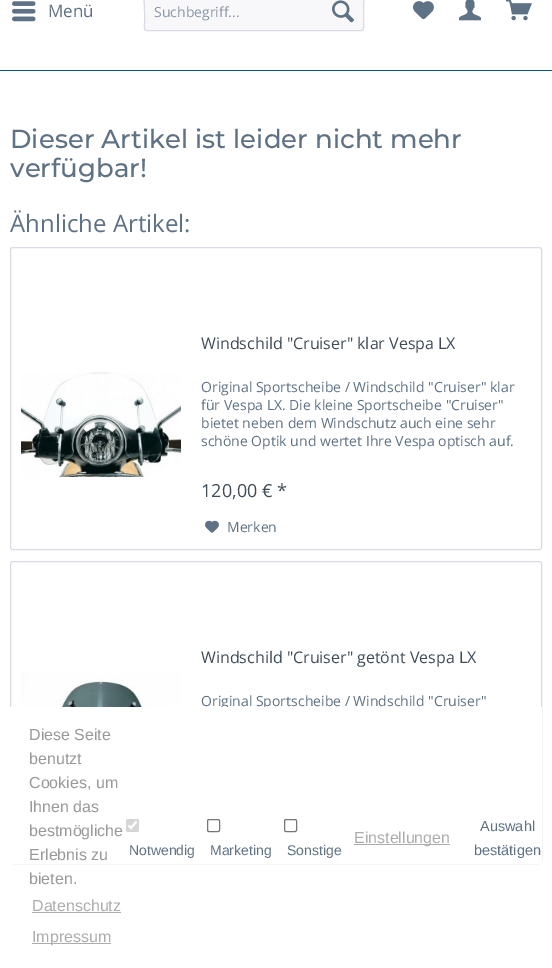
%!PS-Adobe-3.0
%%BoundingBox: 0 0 552 968
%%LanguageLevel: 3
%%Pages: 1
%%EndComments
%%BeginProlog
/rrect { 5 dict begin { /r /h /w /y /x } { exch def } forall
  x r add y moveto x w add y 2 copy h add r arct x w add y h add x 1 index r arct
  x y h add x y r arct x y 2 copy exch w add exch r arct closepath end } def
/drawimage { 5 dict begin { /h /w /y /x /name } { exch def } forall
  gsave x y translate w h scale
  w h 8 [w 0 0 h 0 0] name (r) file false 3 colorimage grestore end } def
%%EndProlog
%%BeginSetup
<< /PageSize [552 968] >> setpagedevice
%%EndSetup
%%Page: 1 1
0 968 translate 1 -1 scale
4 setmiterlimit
1 setgray
0 0 552 968 rectfill
0.008 0.329 0.545 setrgbcolor
0 70 552 1 rectfill
(images/1.raw) 12 1 24 21 drawimage
0.973 0.973 0.98 setrgbcolor
144 -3 220 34 3 rrect fill
0.855 0.855 0.898 setrgbcolor
newpath 363 -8 moveto 364.5 -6 363.5 8 363.5 11 curveto 363.5 22.5 lineto 363.5 24 365 30.5 361 30.5 curveto 147 30.5 lineto 143 30.5 144.5 24 144.5 22.5 curveto 144.5 11 lineto 144.5 8 143.5 -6 145 -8 curveto stroke
(images/2.raw) 332 0 22 23 drawimage
(images/3.raw) 413 1 21 19 drawimage
(images/4.raw) 459 0 22 21 drawimage
(images/5.raw) 506 0 26 21 drawimage
10.5 247.5 531 302 2.5 rrect stroke
(images/6.raw) 21 372 160 105 drawimage
(images/7.raw) 205 520 14 13 drawimage
10.5 561.5 531 302 2.5 rrect stroke
(images/8.raw) 21 672 160 35 drawimage
0.678 setgray
32 912 89 1 rectfill
32 943 79 1 rectfill
/OpenSans-Regular [17 0 0 -17 0 0] selectfont
0.373 0.447 0.522 setrgbcolor
48 17 moveto (Menü) show
/OpenSans-Regular [14 0 0 -14 0 0] selectfont
0.529 0.596 0.663 setrgbcolor
154 17 moveto (Suchbegriff...) show
/Montserrat-Medium [26 0 0 -26 0 0] selectfont
0.373 0.447 0.522 setrgbcolor
10 148 moveto (Dieser Artikel ist leider nicht mehr) show
10 177 moveto (verfügbar!) show
/OpenSans-Regular [24 0 0 -24 0 0] selectfont
10 232 moveto (Ähnliche Artikel:) show
/OpenSans-Regular [16 0 0 -16 0 0] selectfont
0.247 0.298 0.345 setrgbcolor
201 349 moveto (Windschild "Cruiser" klar Vespa LX) show
/OpenSans-Regular [14 0 0 -14 0 0] selectfont
0.373 0.447 0.522 setrgbcolor
201 392 moveto (Original Sportscheibe / Windschild "Cruiser" klar) show
201 410 moveto (für Vespa LX. Die kleine Sportscheibe "Cruiser") show
201 428 moveto (bietet neben dem Windschutz auch eine sehr) show
201 446 moveto (schöne Optik und wertet Ihre Vespa optisch auf.) show
/OpenSans-Regular [18 0 0 -18 0 0] selectfont
0.247 0.298 0.345 setrgbcolor
201 497 moveto (120,00 € *) show
/OpenSans-Regular [14 0 0 -14 0 0] selectfont
0.373 0.447 0.522 setrgbcolor
227 532 moveto (Merken) show
/OpenSans-Regular [16 0 0 -16 0 0] selectfont
0.247 0.298 0.345 setrgbcolor
201 663 moveto (Windschild "Cruiser" getönt Vespa LX) show
/OpenSans-Regular [14 0 0 -14 0 0] selectfont
0.373 0.447 0.522 setrgbcolor
201 706 moveto (Original Sportscheibe / Windschild "Cruiser") show
1 setgray
10 707 532 157 rectfill
/LiberationSans-Regular [16 0 0 -16 0 0] selectfont
0.6 setgray
29 740 moveto (Diese Seite) show
29 764 moveto (benutzt) show
29 788 moveto (Cookies, um) show
29 812 moveto (Ihnen das) show
29 836 moveto (bestmögliche) show
29 860 moveto (Erlebnis zu) show
29 884 moveto (bieten.) show
0.678 setgray
32 911 moveto (Datenschutz) show
32 942 moveto (Impressum) show
354 844 96 1 rectfill
354 843 moveto (Einstellungen) show
/LiberationSans-Regular [14.5 0 0 -14.5 0 0] selectfont
0.373 0.447 0.522 setrgbcolor
480 831 moveto (Auswahl) show
474 855 moveto (bestätigen) show
0.839 setgray
126 819 13 13 2 rrect fill
1 setgray
2.1 setlinewidth
newpath 128.5 825.5 moveto 131 828 lineto 136.5 821.5 lineto stroke
/LiberationSans-Regular [14 0 0 -14 0 0] selectfont
0.373 0.447 0.522 setrgbcolor
129 855 moveto (Notwendig) show
0.463 setgray
1 setlinewidth
207.5 819.5 12 12 1.5 rrect stroke
0.373 0.447 0.522 setrgbcolor
210 855 moveto (Marketing) show
0.463 setgray
284.5 819.5 12 12 1.5 rrect stroke
0.373 0.447 0.522 setrgbcolor
287 855 moveto (Sonstige) show
showpage
%%EOF
